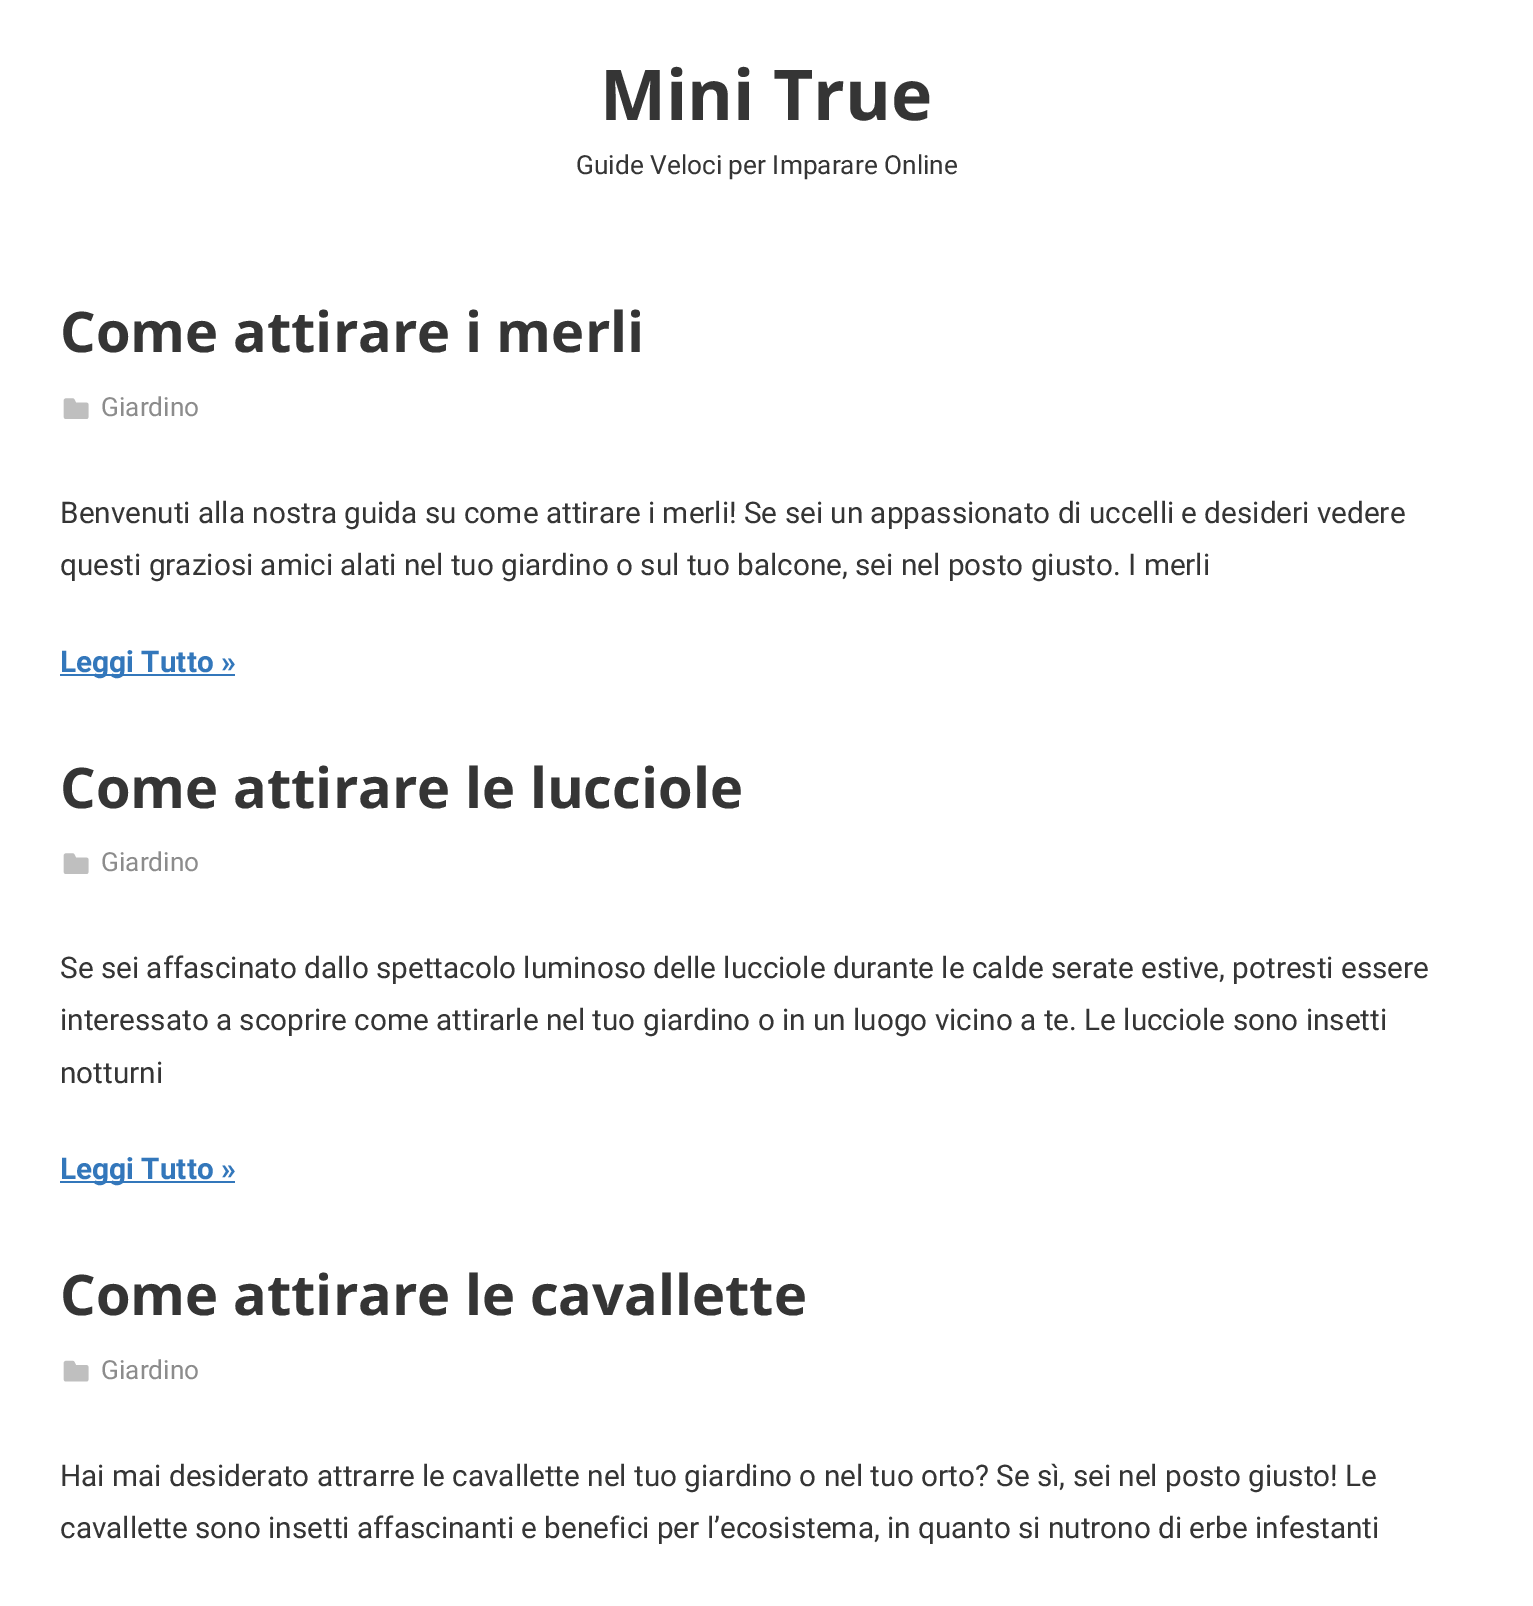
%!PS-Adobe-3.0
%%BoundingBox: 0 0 1533 1606
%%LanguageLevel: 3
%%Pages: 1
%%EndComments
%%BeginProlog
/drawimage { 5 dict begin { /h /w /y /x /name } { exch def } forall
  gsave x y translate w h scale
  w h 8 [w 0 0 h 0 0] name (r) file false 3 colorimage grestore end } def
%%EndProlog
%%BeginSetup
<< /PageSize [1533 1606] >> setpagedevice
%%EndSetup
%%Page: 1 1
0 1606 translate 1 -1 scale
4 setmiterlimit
1 setgray
0 0 1533 1606 rectfill
(images/1.raw) 63 398 26 21 drawimage
0.2 0.467 0.733 setrgbcolor
60 674 175 2 rectfill
(images/1.raw) 63 853 26 21 drawimage
60 1181 175 2 rectfill
(images/2.raw) 63 1360 26 22 drawimage
/OpenSans-Bold [70 0 0 -70 0 0] selectfont
0.208 setgray
600 120 moveto (Mini True) show
/Roboto-Regular [26.25 0 0 -26.25 0 0] selectfont
576 174 moveto (Guide Veloci per Imparare Online) show
/OpenSans-Bold [56 0 0 -56 0 0] selectfont
60 352 moveto (Come attirare i merli) show
/Roboto-Regular [26.25 0 0 -26.25 0 0] selectfont
0.549 setgray
101 416 moveto (Giardino) show
/Roboto-Regular [29.75 0 0 -29.75 0 0] selectfont
0.208 setgray
60 523 moveto (Benvenuti alla nostra guida su come attirare i merli! Se sei un appassionato di uccelli e desideri vedere) show
60 575 moveto (questi graziosi amici alati nel tuo giardino o sul tuo balcone, sei nel posto giusto. I merli) show
/Roboto-Bold [29.75 0 0 -29.75 0 0] selectfont
0.2 0.467 0.733 setrgbcolor
60 672 moveto (Leggi Tutto ») show
/OpenSans-Bold [56 0 0 -56 0 0] selectfont
0.208 setgray
60 808 moveto (Come attirare le lucciole) show
/Roboto-Regular [26.25 0 0 -26.25 0 0] selectfont
0.549 setgray
101 871 moveto (Giardino) show
/Roboto-Regular [29.75 0 0 -29.75 0 0] selectfont
0.208 setgray
60 978 moveto (Se sei affascinato dallo spettacolo luminoso delle lucciole durante le calde serate estive, potresti essere) show
60 1030 moveto (interessato a scoprire come attirarle nel tuo giardino o in un luogo vicino a te. Le lucciole sono insetti) show
60 1083 moveto (notturni) show
/Roboto-Bold [29.75 0 0 -29.75 0 0] selectfont
0.2 0.467 0.733 setrgbcolor
60 1179 moveto (Leggi Tutto ») show
/OpenSans-Bold [56 0 0 -56 0 0] selectfont
0.208 setgray
60 1315 moveto (Come attirare le cavallette) show
/Roboto-Regular [26.25 0 0 -26.25 0 0] selectfont
0.549 setgray
101 1379 moveto (Giardino) show
/Roboto-Regular [29.75 0 0 -29.75 0 0] selectfont
0.208 setgray
60 1486 moveto (Hai mai desiderato attrarre le cavallette nel tuo giardino o nel tuo orto? Se sì, sei nel posto giusto! Le) show
60 1538 moveto (cavallette sono insetti affascinanti e benefici per l’ecosistema, in quanto si nutrono di erbe infestanti) show
showpage
%%EOF
